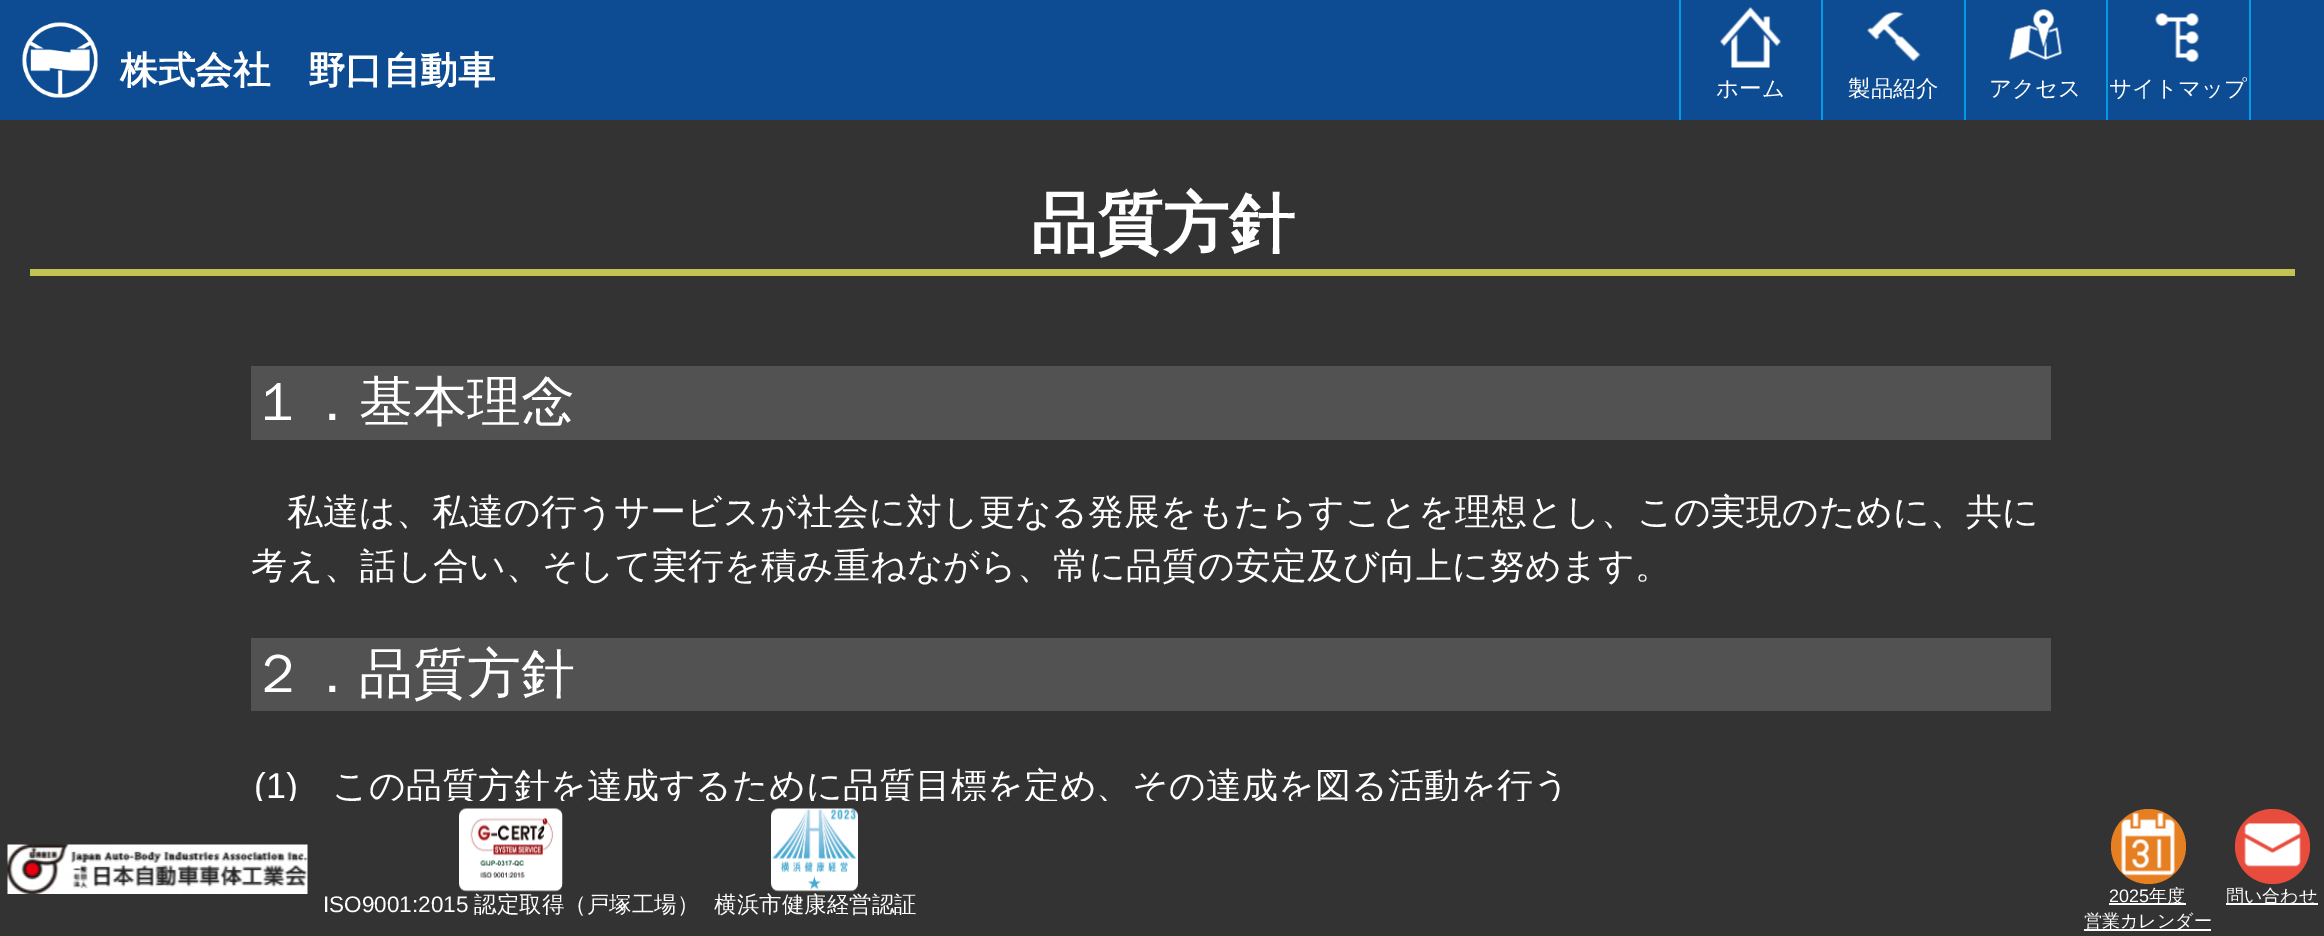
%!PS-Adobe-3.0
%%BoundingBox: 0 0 2324 936
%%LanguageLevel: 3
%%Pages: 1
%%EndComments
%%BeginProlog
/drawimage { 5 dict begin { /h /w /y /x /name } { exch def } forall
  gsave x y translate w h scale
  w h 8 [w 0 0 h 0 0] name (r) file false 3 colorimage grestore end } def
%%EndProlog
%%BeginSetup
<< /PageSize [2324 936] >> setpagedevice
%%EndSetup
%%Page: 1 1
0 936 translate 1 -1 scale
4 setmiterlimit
0.2 setgray
0 0 2324 936 rectfill
0.051 0.298 0.576 setrgbcolor
0 0 2324 120 rectfill
(images/1.raw) 22 22 76 76 drawimage
0.012 0.608 0.898 setrgbcolor
1679 0 2 120 rectfill
(images/2.raw) 1720 7 61 61 drawimage
1821 0 2 120 rectfill
(images/3.raw) 1867 11 54 51 drawimage
1964 0 2 120 rectfill
(images/4.raw) 2009 9 53 51 drawimage
2106 0 2 120 rectfill
(images/5.raw) 2155 13 44 50 drawimage
2249 0 2 120 rectfill
0.761 0.761 0.333 setrgbcolor
30 269 2265 7 rectfill
0.322 setgray
251 366 1800 74 rectfill
251 638 1800 73 rectfill
(images/6.raw) 7 844 301 50 drawimage
(images/7.raw) 459 808 104 84 drawimage
(images/8.raw) 771 808 87 84 drawimage
0.902 0.494 0.133 setrgbcolor
newpath 2148.5 846.5 37.5 0 360 arc closepath fill
(images/9.raw) 2121 812 54 64 drawimage
1 setgray
2109 903 77 2 rectfill
2084 929 127 2 rectfill
0.906 0.298 0.235 setrgbcolor
newpath 2272.5 846.5 37.5 0 360 arc closepath fill
(images/10.raw) 2244 823 57 44 drawimage
1 setgray
2226 903 92 2 rectfill
/WenQuanYiZenHei-Bold [37.5 0 0 -37.5 0 0] selectfont
120 83 moveto (株式会社　野口自動車) show
/WenQuanYiZenHei-Medium [22.5 0 0 -22.5 0 0] selectfont
1716 96 moveto (ホーム) show
1848 96 moveto (製品紹介) show
1989 96 moveto (アクセス) show
2109 96 moveto (サイトマップ) show
/WenQuanYiZenHei-Bold [66 0 0 -66 0 0] selectfont
1031 246 moveto (品質方針) show
/WenQuanYiZenHei-Medium [54 0 0 -54 0 0] selectfont
251 420 moveto (１．基本理念) show
/WenQuanYiZenHei-Medium [36 0 0 -36 0 0] selectfont
287 524 moveto (私達は、私達の行うサービスが社会に対し更なる発展をもたらすことを理想とし、この実現のために、共に) show
251 578 moveto (考え、話し合い、そして実行を積み重ねながら、常に品質の安定及び向上に努めます。) show
/WenQuanYiZenHei-Medium [54 0 0 -54 0 0] selectfont
251 692 moveto (２．品質方針) show
gsave
0 120 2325 681 rectclip
/LiberationSans-Regular [36 0 0 -36 0 0] selectfont
254 798 moveto (\(1\)) show
/WenQuanYiZenHei-Medium [36 0 0 -36 0 0] selectfont
332 798 moveto (この品質方針を達成するために品質目標を定め、その達成を図る活動を行う) show
grestore
/LiberationSans-Regular [22.5 0 0 -22.5 0 0] selectfont
323 912 moveto (ISO9001:2015) show
/WenQuanYiZenHei-Medium [22.5 0 0 -22.5 0 0] selectfont
474 912 moveto (認定取得（戸塚工場）) show
714 912 moveto (横浜市健康経営認証) show
/LiberationSans-Regular [18 0 0 -18 0 0] selectfont
2109 902 moveto (2025) show
/WenQuanYiZenHei-Medium [18 0 0 -18 0 0] selectfont
2149 902 moveto (年度) show
2084 927 moveto (営業カレンダー) show
2226 902 moveto (問い合わせ) show
showpage
%%EOF
